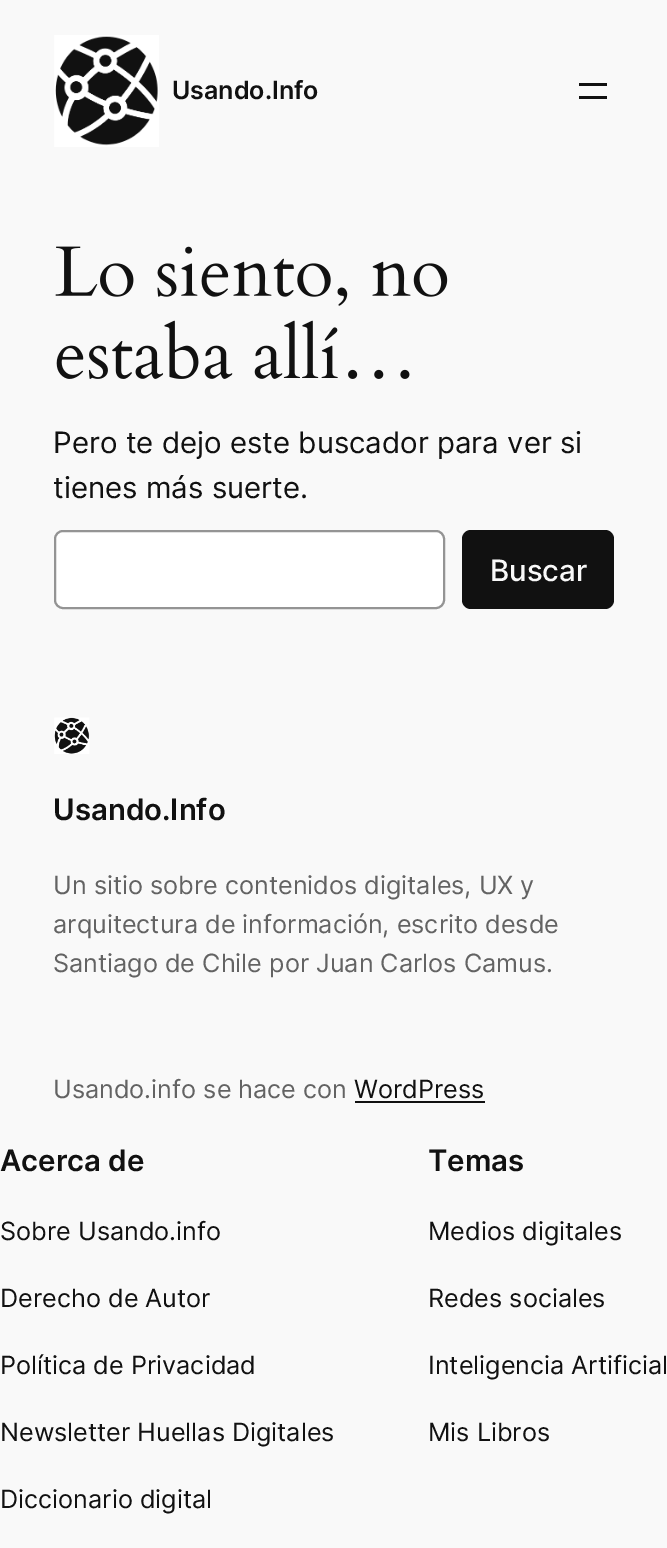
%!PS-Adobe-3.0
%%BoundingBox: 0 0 667 1548
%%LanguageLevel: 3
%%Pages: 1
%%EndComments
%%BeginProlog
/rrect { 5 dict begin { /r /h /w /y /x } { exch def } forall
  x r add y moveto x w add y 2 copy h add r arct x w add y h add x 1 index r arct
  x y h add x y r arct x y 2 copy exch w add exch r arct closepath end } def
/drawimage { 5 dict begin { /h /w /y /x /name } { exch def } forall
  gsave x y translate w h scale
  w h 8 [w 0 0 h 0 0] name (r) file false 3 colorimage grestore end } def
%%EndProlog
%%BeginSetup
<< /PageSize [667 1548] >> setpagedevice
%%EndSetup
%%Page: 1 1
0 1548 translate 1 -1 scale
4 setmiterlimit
0.976 setgray
0 0 667 1548 rectfill
(images/1.raw) 54 35 105 112 drawimage
0.067 setgray
579 83 28 3 rectfill
579 96 28 3 rectfill
(images/2.raw) 55 246 393 60 drawimage
(images/3.raw) 56 320 354 59 drawimage
1 setgray
55 531 389 77 8 rrect gsave fill grestore
0.58 setgray
2 setlinewidth
stroke
0.067 setgray
462 530 152 79 9 rrect fill
(images/4.raw) 54 717 36 37 drawimage
355 1101 130 2 rectfill
/Inter-SemiBold [25 0 0 -25 0 0] selectfont
172 99 moveto (Usando.Info) show
/Inter-Regular [29.4 0 0 -29.4 0 0] selectfont
53 453 moveto (Pero te dejo este buscador para ver si) show
53 498 moveto (tienes más suerte.) show
/Inter-Medium [29.4 0 0 -29.4 0 0] selectfont
0.976 setgray
490 581 moveto (Buscar) show
/Inter-SemiBold [29.4 0 0 -29.4 0 0] selectfont
0.067 setgray
53 820 moveto (Usando.Info) show
/Inter-Regular [25.2 0 0 -25.2 0 0] selectfont
0.388 setgray
53 894 moveto (Un sitio sobre contenidos digitales, UX y) show
53 933 moveto (arquitectura de información, escrito desde) show
53 972 moveto (Santiago de Chile por Juan Carlos Camus.) show
53 1098 moveto (Usando.info se hace con) show
0.067 setgray
354 1098 moveto (WordPress) show
/Inter-SemiBold [29.4 0 0 -29.4 0 0] selectfont
0 1171 moveto (Acerca de) show
/Inter-Regular [25.2 0 0 -25.2 0 0] selectfont
0 1240 moveto (Sobre Usando.info) show
0 1307 moveto (Derecho de Autor) show
0 1374 moveto (Política de Privacidad) show
0 1441 moveto (Newsletter Huellas Digitales) show
0 1508 moveto (Diccionario digital) show
/Inter-SemiBold [29.4 0 0 -29.4 0 0] selectfont
428 1171 moveto (Temas) show
/Inter-Regular [25.2 0 0 -25.2 0 0] selectfont
428 1240 moveto (Medios digitales) show
428 1307 moveto (Redes sociales) show
428 1374 moveto (Inteligencia Artificial) show
428 1441 moveto (Mis Libros) show
showpage
%%EOF
